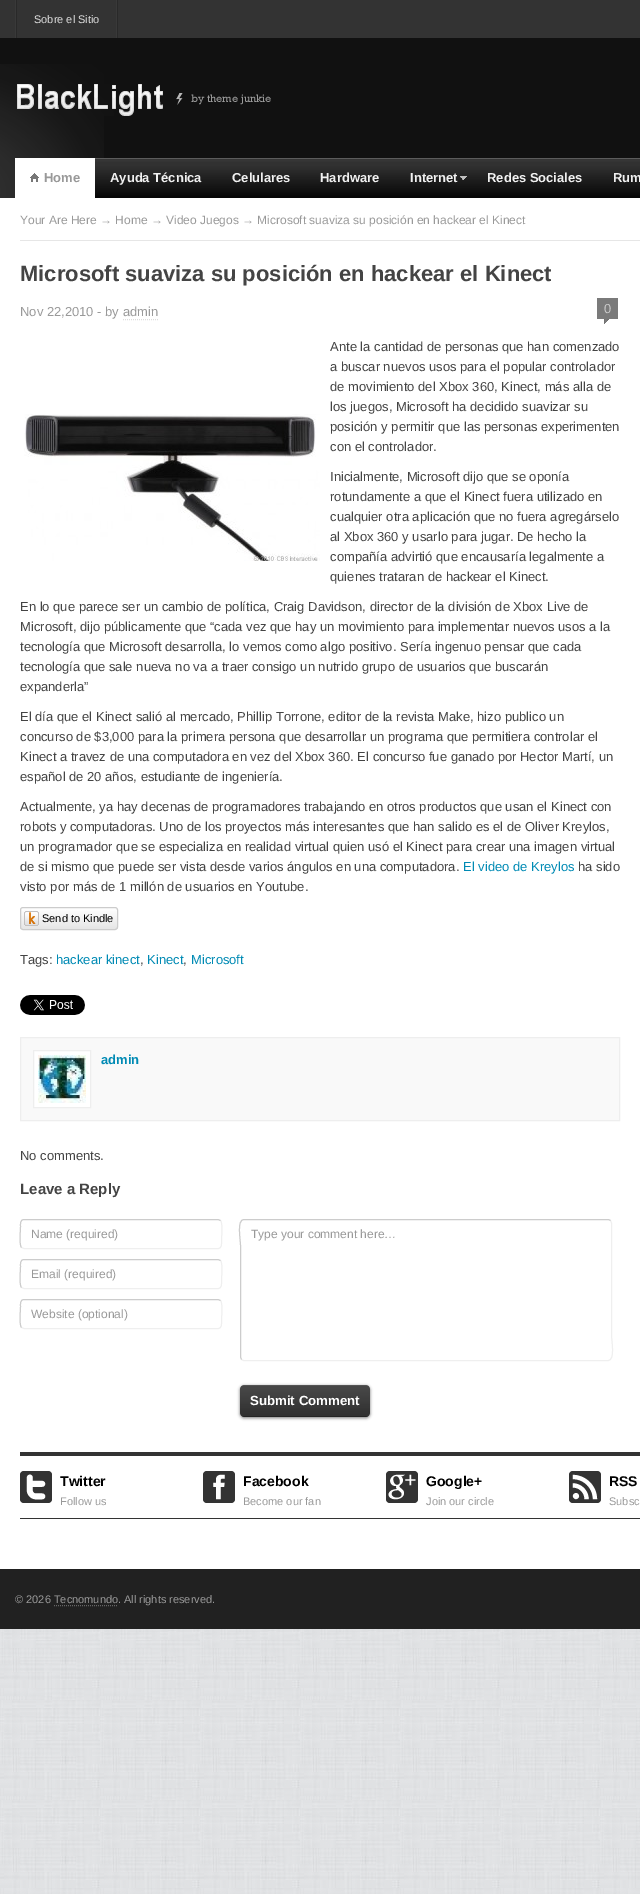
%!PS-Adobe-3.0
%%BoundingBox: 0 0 640 1894
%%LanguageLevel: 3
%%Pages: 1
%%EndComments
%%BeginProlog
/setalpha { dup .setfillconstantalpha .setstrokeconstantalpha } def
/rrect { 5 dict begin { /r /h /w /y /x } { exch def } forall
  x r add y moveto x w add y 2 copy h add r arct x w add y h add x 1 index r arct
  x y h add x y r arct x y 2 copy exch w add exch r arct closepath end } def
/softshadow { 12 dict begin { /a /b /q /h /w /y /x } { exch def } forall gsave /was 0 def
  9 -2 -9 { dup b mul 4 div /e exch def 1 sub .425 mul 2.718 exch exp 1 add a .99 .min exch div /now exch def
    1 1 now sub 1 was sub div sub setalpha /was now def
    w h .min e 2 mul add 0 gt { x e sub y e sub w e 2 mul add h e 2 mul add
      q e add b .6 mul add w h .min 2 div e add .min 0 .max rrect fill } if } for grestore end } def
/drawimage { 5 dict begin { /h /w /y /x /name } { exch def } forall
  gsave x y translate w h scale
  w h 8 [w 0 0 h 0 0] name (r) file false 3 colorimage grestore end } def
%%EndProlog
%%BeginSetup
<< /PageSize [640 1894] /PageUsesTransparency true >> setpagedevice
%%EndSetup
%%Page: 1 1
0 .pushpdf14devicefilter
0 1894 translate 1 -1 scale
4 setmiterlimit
1 setgray
0 0 640 1894 rectfill
(images/1.raw) 0 1629 640 265 drawimage
0.2 setgray
0 0 640 38 rectfill
0.224 setgray
15 0 1 38 rectfill
0.161 setgray
117 0 1 38 rectfill
0.224 setgray
116 0 1 38 rectfill
0.161 setgray
16 0 1 38 rectfill
0.067 setgray
0 38 640 160 rectfill
(images/2.raw) 0 64 104 134 drawimage
(images/3.raw) 17 84 254 32 drawimage
(images/4.raw) 95 158 545 40 drawimage
1 setgray
15 158 80 40 rectfill
(images/5.raw) 30 173 9 9 drawimage
(images/6.raw) 460 176 7 4 drawimage
(images/7.raw) 460 177 5 3 drawimage
0.902 setgray
20 240 620 1 rectfill
(images/8.raw) 597 298 21 26 drawimage
0.867 setgray
[1 1] 0 setdash
newpath 123 319.5 moveto 158 319.5 lineto stroke
(images/9.raw) 24 414 296 147 drawimage
gsave
20 907 98 23 3 rrect clip newpath
gsave newpath 20 908 moveto 118 908 lineto 118 929 lineto 20 929 lineto closepath clip newpath
<< /ShadingType 2 /ColorSpace /DeviceRGB /Coords [69 908 69 929] /Extend [true true] /Function << /FunctionType 2 /Domain [0 1] /C0 [1 1 1] /C1 [0.902 0.902 0.902] /N 1 >> >> shfill grestore
grestore
0.8 setgray
[] 0 setdash
20.5 907.5 97 22 2.5 rrect stroke
(images/10.raw) 24 911 15 15 drawimage
(images/11.raw) 20 995 65 20 drawimage
0.976 setgray
newpath 20.5 1037.5 moveto 619.5 1037.5 lineto 619.5 1120.5 lineto 20.5 1120.5 lineto closepath gsave fill grestore
0.933 setgray
stroke
1 setgray
newpath 33.5 1050.5 moveto 90.5 1050.5 lineto 90.5 1107.5 lineto 33.5 1107.5 lineto closepath gsave fill grestore
0.933 setgray
stroke
(images/12.raw) 38 1055 48 48 drawimage
0.937 setgray
newpath 220.5 1220.5 moveto 223 1223 221.5 1237.5 221.5 1241.5 curveto 221.5 1244 222 1248.5 218 1248.5 curveto 24 1248.5 lineto 21.5 1247.5 lineto stroke
0.8 setgray
newpath 21.5 1247.5 moveto 19 1245 20.5 1230.5 20.5 1226.5 curveto 20.5 1224 20 1219.5 24 1219.5 curveto 218 1219.5 lineto 220.5 1220.5 lineto stroke
0.937 setgray
newpath 220.5 1260.5 moveto 223 1263 221.5 1277.5 221.5 1281.5 curveto 221.5 1284 222 1288.5 218 1288.5 curveto 24 1288.5 lineto 21.5 1287.5 lineto stroke
0.8 setgray
newpath 21.5 1287.5 moveto 19 1285 20.5 1270.5 20.5 1266.5 curveto 20.5 1264 20 1259.5 24 1259.5 curveto 218 1259.5 lineto 220.5 1260.5 lineto stroke
0.937 setgray
newpath 220.5 1300.5 moveto 223 1303 221.5 1317.5 221.5 1321.5 curveto 221.5 1324 222 1328.5 218 1328.5 curveto 24 1328.5 lineto 21.5 1327.5 lineto stroke
0.8 setgray
newpath 21.5 1327.5 moveto 19 1325 20.5 1310.5 20.5 1306.5 curveto 20.5 1304 20 1299.5 24 1299.5 curveto 218 1299.5 lineto 220.5 1300.5 lineto stroke
0.937 setgray
newpath 610.5 1220.5 moveto 611.5 1223 lineto 611.5 1334.5 lineto 611.5 1340.5 615.5 1360.5 608 1360.5 curveto 243.5 1360.5 lineto 241.5 1359.5 lineto stroke
0.8 setgray
newpath 241.5 1359.5 moveto 240.5 1357 lineto 240.5 1245.5 lineto 240.5 1239.5 236.5 1219.5 244 1219.5 curveto 608.5 1219.5 lineto 610.5 1220.5 lineto stroke
0 setgray
240 1386 130 32 4 1.5 0.5 softshadow
0.204 setgray
240 1385 130 32 4 rrect fill
(images/13.raw) 240 1385 130 32 drawimage
0.25 setalpha
0 setgray
242 1416 126 1 rectfill
1 setalpha
0.2 setgray
20 1452 620 4 rectfill
(images/14.raw) 20 1471 32 32 drawimage
(images/15.raw) 203 1471 32 32 drawimage
(images/16.raw) 386 1471 32 32 drawimage
(images/17.raw) 569 1471 32 32 drawimage
20 1518 620 1 rectfill
0.129 setgray
0 1569 640 60 rectfill
/LiberationSans-Regular [11 0 0 -11 0 0] selectfont
0.867 setgray
34 23 moveto (Sobre el Sitio) show
/LiberationSans-Bold [13 0 0 -13 0 0] selectfont
0.6 setgray
44 182 moveto (Home) show
0.941 setgray
110 182 moveto (Ayuda Técnica) show
232 182 moveto (Celulares) show
320 182 moveto (Hardware) show
410 182 moveto (Internet) show
487 182 moveto (Redes Sociales) show
613 182 moveto (Rum) show
/LiberationSans-Regular [12 0 0 -12 0 0] selectfont
0.6 setgray
20 224 moveto (Your Are Here → Home → Video Juegos → Microsoft suaviza su posición en hackear el Kinect) show
/LiberationSans-Bold [22 0 0 -22 0 0] selectfont
0.267 setgray
20 281 moveto (Microsoft suaviza su posición en hackear el Kinect) show
/LiberationSans-Regular [13 0 0 -13 0 0] selectfont
0.6 setgray
20 316 moveto (Nov 22,2010 - by admin) show
0.792 setgray
604 313 moveto (0) show
0.267 setgray
330 351 moveto (Ante la cantidad de personas que han comenzado) show
330 371 moveto (a buscar nuevos usos para el popular controlador) show
330 391 moveto (de movimiento del Xbox 360, Kinect, más alla de) show
330 411 moveto (los juegos, Microsoft ha decidido suavizar su) show
330 431 moveto (posición y permitir que las personas experimenten) show
330 451 moveto (con el controlador.) show
330 481 moveto (Inicialmente, Microsoft dijo que se oponía) show
330 501 moveto (rotundamente a que el Kinect fuera utilizado en) show
330 521 moveto (cualquier otra aplicación que no fuera agregárselo) show
330 541 moveto (al Xbox 360 y usarlo para jugar. De hecho la) show
330 561 moveto (compañía advirtió que encausaría legalmente a) show
330 581 moveto (quienes trataran de hackear el Kinect.) show
20 611 moveto (En lo que parece ser un cambio de política, Craig Davidson, director de la división de Xbox Live de) show
20 631 moveto (Microsoft, dijo públicamente que “cada vez que hay un movimiento para implementar nuevos usos a la) show
20 651 moveto (tecnología que Microsoft desarrolla, lo vemos como algo positivo. Sería ingenuo pensar que cada) show
20 671 moveto (tecnología que sale nueva no va a traer consigo un nutrido grupo de usuarios que buscarán) show
20 691 moveto (expanderla”) show
20 721 moveto (El día que el Kinect salió al mercado, Phillip Torrone, editor de la revista Make, hizo publico un) show
20 741 moveto (concurso de $3,000 para la primera persona que desarrollar un programa que permitiera controlar el) show
20 761 moveto (Kinect a travez de una computadora en vez del Xbox 360. El concurso fue ganado por Hector Martí, un) show
20 781 moveto (español de 20 años, estudiante de ingeniería.) show
20 811 moveto (Actualmente, ya hay decenas de programadores trabajando en otros productos que usan el Kinect con) show
20 831 moveto (robots y computadoras. Uno de los proyectos más interesantes que han salido es el de Oliver Kreylos,) show
20 851 moveto (un programador que se especializa en realidad virtual quien usó el Kinect para crear una imagen virtual) show
20 871 moveto (de si mismo que puede ser vista desde varios ángulos en una computadora.) show
0 0.541 0.706 setrgbcolor
463 871 moveto (El video de Kreylos) show
0.267 setgray
578 871 moveto (ha sido) show
20 891 moveto (visto por más de 1 millón de usuarios en Youtube.) show
/LiberationSans-Regular [11 0 0 -11 0 0] selectfont
0 setgray
42 922 moveto (Send to Kindle) show
/LiberationSans-Regular [13 0 0 -13 0 0] selectfont
0.267 setgray
20 964 moveto (Tags:) show
0 0.541 0.706 setrgbcolor
56 964 moveto (hackear kinect) show
0.267 setgray
140 964 moveto (,) show
0 0.541 0.706 setrgbcolor
147 964 moveto (Kinect) show
0.267 setgray
183 964 moveto (,) show
0 0.541 0.706 setrgbcolor
191 964 moveto (Microsoft) show
/LiberationSans-Bold [13 0 0 -13 0 0] selectfont
101 1064 moveto (admin) show
/LiberationSans-Regular [13 0 0 -13 0 0] selectfont
0.267 setgray
20 1160 moveto (No comments.) show
/LiberationSans-Bold [15 0 0 -15 0 0] selectfont
20 1194 moveto (Leave a Reply) show
/LiberationSans-Regular [12 0 0 -12 0 0] selectfont
0.6 setgray
31 1238 moveto (Name \(required\)) show
31 1278 moveto (Email \(required\)) show
31 1318 moveto (Website \(optional\)) show
251 1238 moveto (Type your comment here…) show
/LiberationSans-Bold [13.25 0 0 -13.25 0 0] selectfont
1 setgray
250 1405 moveto (Submit Comment) show
/LiberationSans-Bold [14 0 0 -14 0 0] selectfont
0 setgray
60 1486 moveto (Twitter) show
/LiberationSans-Regular [11 0 0 -11 0 0] selectfont
0.6 setgray
60 1505 moveto (Follow us) show
/LiberationSans-Bold [14 0 0 -14 0 0] selectfont
0 setgray
243 1486 moveto (Facebook) show
/LiberationSans-Regular [11 0 0 -11 0 0] selectfont
0.6 setgray
243 1505 moveto (Become our fan) show
/LiberationSans-Bold [14 0 0 -14 0 0] selectfont
0 setgray
426 1486 moveto (Google+) show
/LiberationSans-Regular [11 0 0 -11 0 0] selectfont
0.6 setgray
426 1505 moveto (Join our circle) show
/LiberationSans-Bold [14 0 0 -14 0 0] selectfont
0 setgray
609 1486 moveto (RSS) show
/LiberationSans-Regular [11 0 0 -11 0 0] selectfont
0.6 setgray
609 1505 moveto (Subsc) show
15 1603 moveto (© 2026 Tecnomundo. All rights reserved.) show
0.4 setgray
[1 1] 0 setdash
newpath 54 1605.5 moveto 118 1605.5 lineto stroke
.poppdf14devicefilter showpage
%%EOF
